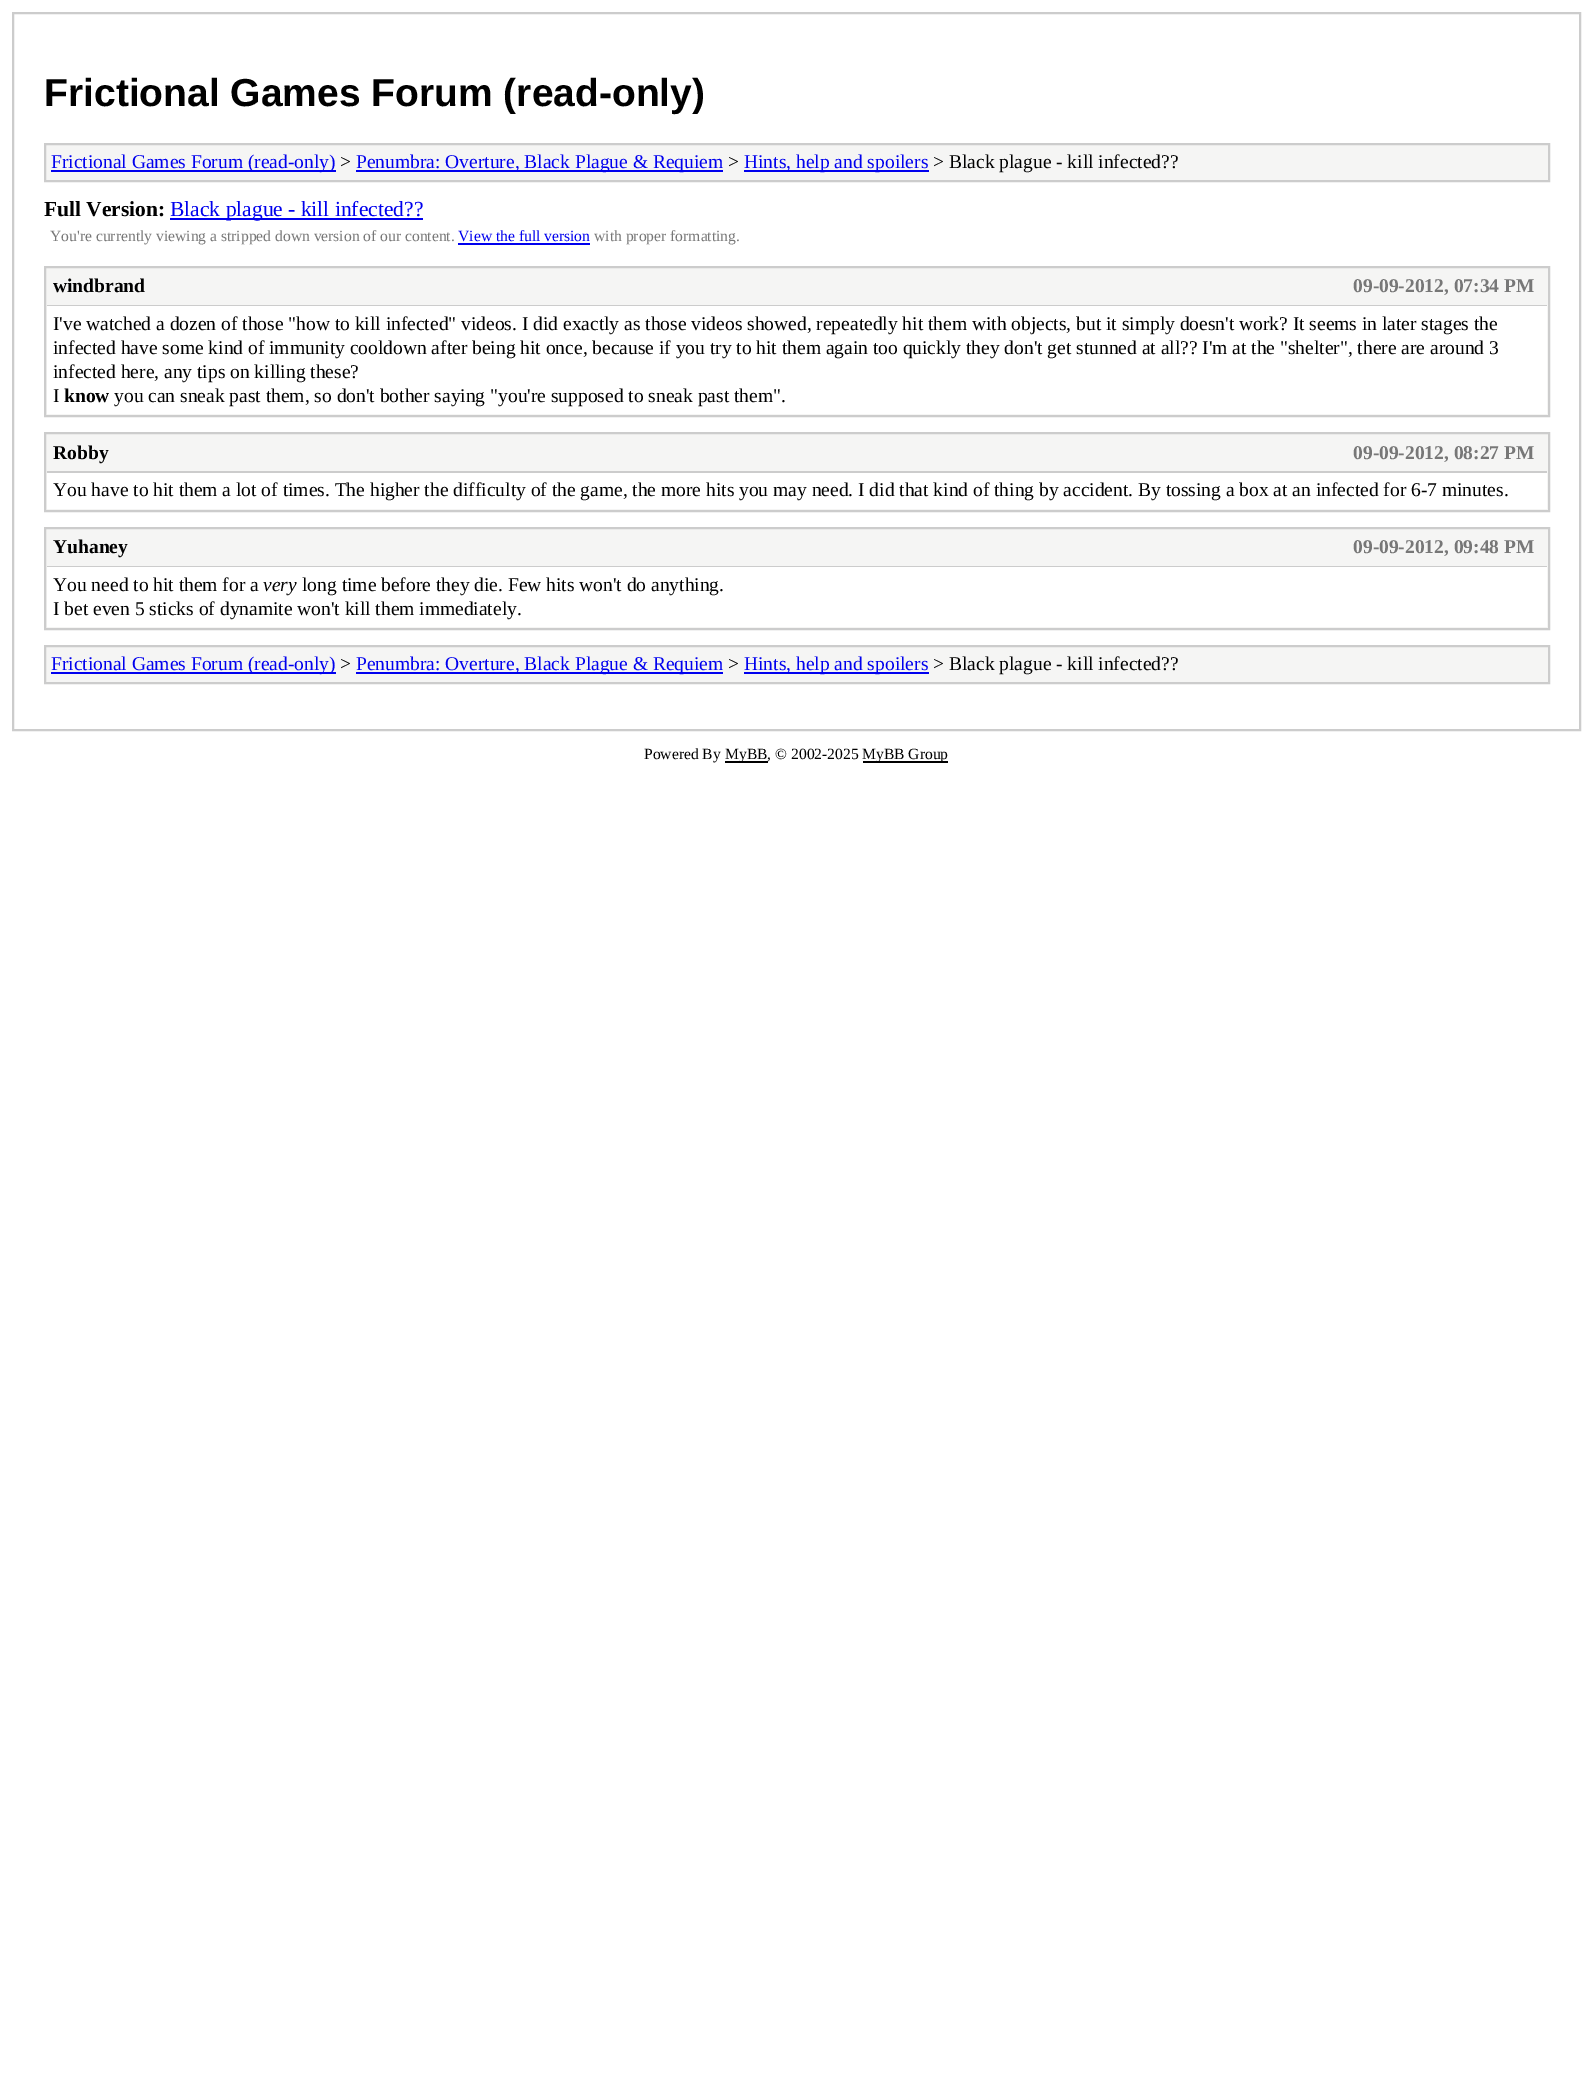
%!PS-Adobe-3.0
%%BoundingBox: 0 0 1592 2073
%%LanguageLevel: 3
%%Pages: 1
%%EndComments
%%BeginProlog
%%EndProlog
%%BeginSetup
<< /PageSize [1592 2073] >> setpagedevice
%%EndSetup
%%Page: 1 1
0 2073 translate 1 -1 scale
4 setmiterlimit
1 setgray
0 0 1592 2073 rectfill
0.8 setgray
2 setlinewidth
13 13 1567 717 rectstroke
0.961 0.961 0.957 setrgbcolor
newpath 45 144 moveto 1549 144 lineto 1549 181 lineto 45 181 lineto closepath gsave fill grestore
0.8 setgray
stroke
0 0 0.933 setrgbcolor
51 170 285 2 rectfill
356 170 367 2 rectfill
744 170 185 2 rectfill
170 218 253 2 rectfill
458 243 132 2 rectfill
0.961 0.961 0.957 setrgbcolor
newpath 45 267 moveto 1549 267 lineto 1549 416 lineto 45 416 lineto closepath gsave fill grestore
0.8 setgray
stroke
47 305 1500 1 rectfill
1 setgray
47 306 1500 108 rectfill
0.961 0.961 0.957 setrgbcolor
newpath 45 433 moveto 1549 433 lineto 1549 511 lineto 45 511 lineto closepath gsave fill grestore
0.8 setgray
stroke
47 471 1500 2 rectfill
1 setgray
47 473 1500 36 rectfill
0.961 0.961 0.957 setrgbcolor
newpath 45 528 moveto 1549 528 lineto 1549 629 lineto 45 629 lineto closepath gsave fill grestore
0.8 setgray
stroke
47 566 1500 1 rectfill
1 setgray
47 567 1500 60 rectfill
0.961 0.961 0.957 setrgbcolor
newpath 45 646 moveto 1549 646 lineto 1549 683 lineto 45 683 lineto closepath gsave fill grestore
0.8 setgray
stroke
0 0 0.933 setrgbcolor
51 672 285 2 rectfill
356 672 367 2 rectfill
744 672 185 2 rectfill
0 setgray
725 761 43 2 rectfill
863 761 85 2 rectfill
/LiberationSans-Bold [39 0 0 -39 0 0] selectfont
44 106 moveto (Frictional Games Forum \(read-only\)) show
/LiberationSerif-Regular [19.5 0 0 -19.5 0 0] selectfont
0 0 0.933 setrgbcolor
51 168 moveto (Frictional Games Forum \(read-only\)) show
0 setgray
340 168 moveto (>) show
0 0 0.933 setrgbcolor
356 168 moveto (Penumbra: Overture, Black Plague & Requiem) show
0 setgray
728 168 moveto (>) show
0 0 0.933 setrgbcolor
744 168 moveto (Hints, help and spoilers) show
0 setgray
933 168 moveto (> Black plague - kill infected??) show
/LiberationSerif-Bold [21.5 0 0 -21.5 0 0] selectfont
44 216 moveto (Full Version:) show
/LiberationSerif-Regular [21.5 0 0 -21.5 0 0] selectfont
0 0 0.933 setrgbcolor
170 216 moveto (Black plague - kill infected??) show
/LiberationSerif-Regular [15.6 0 0 -15.6 0 0] selectfont
0.467 setgray
50 241 moveto (You're currently viewing a stripped down version of our content.) show
0 0 0.933 setrgbcolor
458 241 moveto (View the full version) show
0.467 setgray
594 241 moveto (with proper formatting.) show
/LiberationSerif-Bold [19.5 0 0 -19.5 0 0] selectfont
0 setgray
53 292 moveto (windbrand) show
0.467 setgray
1353 292 moveto (09-09-2012, 07:34 PM) show
/LiberationSerif-Regular [19.5 0 0 -19.5 0 0] selectfont
0 setgray
53 330 moveto (I've watched a dozen of those "how to kill infected" videos. I did exactly as those videos showed, repeatedly hit them with objects, but it simply doesn't work? It seems in later stages the) show
53 354 moveto (infected have some kind of immunity cooldown after being hit once, because if you try to hit them again too quickly they don't get stunned at all?? I'm at the "shelter", there are around 3) show
53 378 moveto (infected here, any tips on killing these?) show
53 402 moveto (I) show
/LiberationSerif-Bold [19.5 0 0 -19.5 0 0] selectfont
64 402 moveto (know) show
/LiberationSerif-Regular [19.5 0 0 -19.5 0 0] selectfont
114 402 moveto (you can sneak past them, so don't bother saying "you're supposed to sneak past them".) show
/LiberationSerif-Bold [19.5 0 0 -19.5 0 0] selectfont
53 459 moveto (Robby) show
0.467 setgray
1353 459 moveto (09-09-2012, 08:27 PM) show
/LiberationSerif-Regular [19.5 0 0 -19.5 0 0] selectfont
0 setgray
53 496 moveto (You have to hit them a lot of times. The higher the difficulty of the game, the more hits you may need. I did that kind of thing by accident. By tossing a box at an infected for 6-7 minutes.) show
/LiberationSerif-Bold [19.5 0 0 -19.5 0 0] selectfont
53 553 moveto (Yuhaney) show
0.467 setgray
1353 553 moveto (09-09-2012, 09:48 PM) show
/LiberationSerif-Regular [19.5 0 0 -19.5 0 0] selectfont
0 setgray
53 591 moveto (You need to hit them for a) show
/LiberationSerif-Italic [19.5 0 0 -19.5 0 0] selectfont
263 591 moveto (very) show
/LiberationSerif-Regular [19.5 0 0 -19.5 0 0] selectfont
302 591 moveto (long time before they die. Few hits won't do anything.) show
53 615 moveto (I bet even 5 sticks of dynamite won't kill them immediately.) show
0 0 0.933 setrgbcolor
51 670 moveto (Frictional Games Forum \(read-only\)) show
0 setgray
340 670 moveto (>) show
0 0 0.933 setrgbcolor
356 670 moveto (Penumbra: Overture, Black Plague & Requiem) show
0 setgray
728 670 moveto (>) show
0 0 0.933 setrgbcolor
744 670 moveto (Hints, help and spoilers) show
0 setgray
933 670 moveto (> Black plague - kill infected??) show
/LiberationSerif-Regular [15.6 0 0 -15.6 0 0] selectfont
644 759 moveto (Powered By) show
725 759 moveto (MyBB, © 2002-2025) show
862 759 moveto (MyBB Group) show
showpage
%%EOF
